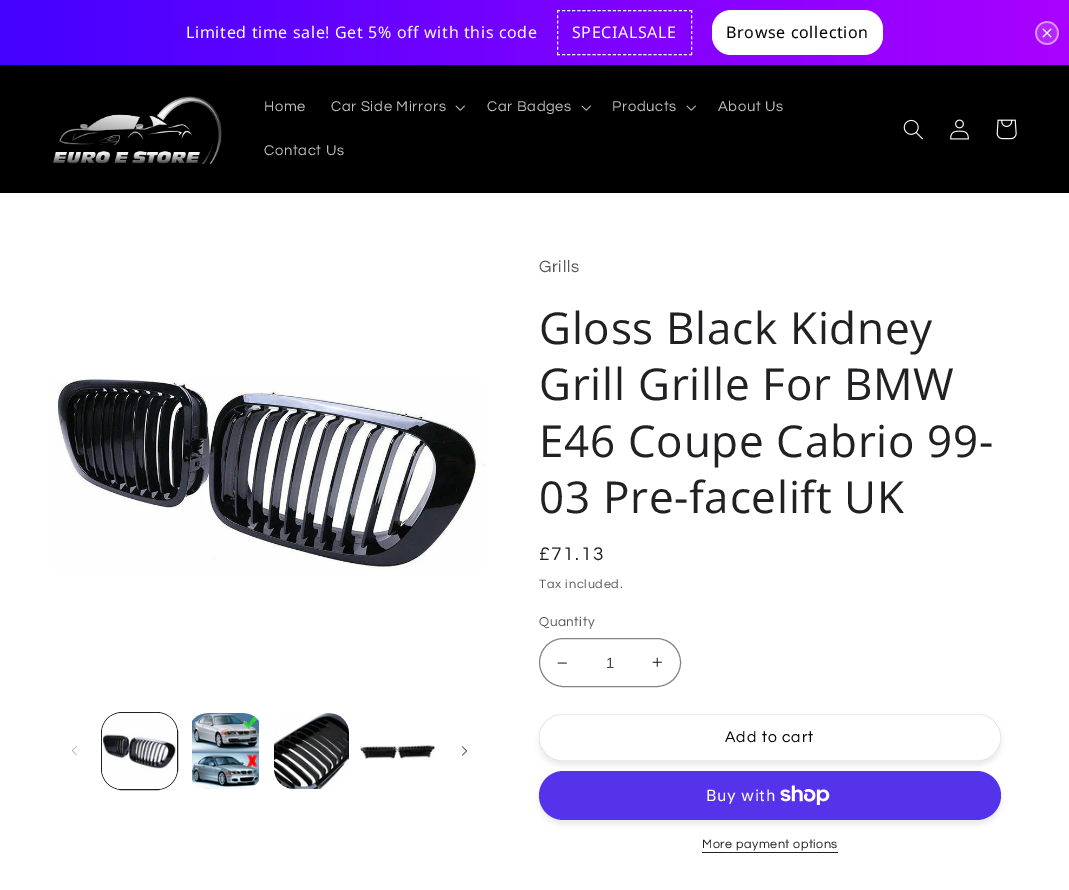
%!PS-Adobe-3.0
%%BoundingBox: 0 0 1069 890
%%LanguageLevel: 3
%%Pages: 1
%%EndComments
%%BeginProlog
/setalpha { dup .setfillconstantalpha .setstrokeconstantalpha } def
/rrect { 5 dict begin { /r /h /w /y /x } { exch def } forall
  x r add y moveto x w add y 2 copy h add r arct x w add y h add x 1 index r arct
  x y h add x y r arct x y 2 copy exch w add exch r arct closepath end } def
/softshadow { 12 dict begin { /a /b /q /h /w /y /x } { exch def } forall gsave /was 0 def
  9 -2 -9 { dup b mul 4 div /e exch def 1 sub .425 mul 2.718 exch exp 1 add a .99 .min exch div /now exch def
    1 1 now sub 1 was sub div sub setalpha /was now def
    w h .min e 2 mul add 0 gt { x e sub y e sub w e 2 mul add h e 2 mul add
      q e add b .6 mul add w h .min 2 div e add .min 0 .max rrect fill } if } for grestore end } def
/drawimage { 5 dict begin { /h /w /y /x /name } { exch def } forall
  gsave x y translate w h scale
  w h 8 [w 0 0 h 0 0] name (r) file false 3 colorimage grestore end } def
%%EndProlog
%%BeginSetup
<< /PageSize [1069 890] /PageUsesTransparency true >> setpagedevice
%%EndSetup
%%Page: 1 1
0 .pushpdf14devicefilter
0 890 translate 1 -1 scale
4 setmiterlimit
1 setgray
0 0 1069 890 rectfill
0 setgray
0 65 1069 128 rectfill
0.129 0.169 0.212 setrgbcolor
0 0 1069 65 0 5 0.1 softshadow
gsave newpath 0 0 moveto 1069 0 lineto 1069 65 lineto 0 65 lineto closepath clip newpath
<< /ShadingType 2 /ColorSpace /DeviceRGB /Coords [0 33 1069 32] /Extend [true true] /Function << /FunctionType 2 /Domain [0 1] /C0 [0.267 0.004 1] /C1 [0.663 0.004 1] /N 1 >> >> shfill grestore
1 setgray
[3 2.08] 0 setdash
newpath 557 10.5 moveto 692 10.5 lineto stroke
[3 2.25] 0 setdash
newpath 691.5 10 moveto 691.5 55 lineto stroke
[3 2.08] 0 setdash
newpath 557 54.5 moveto 692 54.5 lineto stroke
[3 2.25] 0 setdash
newpath 557.5 10 moveto 557.5 55 lineto stroke
712 10 171 45 19 rrect fill
(images/1.raw) 1035 21 24 24 drawimage
(images/2.raw) 53 96 169 68 drawimage
(images/3.raw) 455 105 10 6 drawimage
(images/3.raw) 581 105 10 6 drawimage
(images/3.raw) 686 105 10 6 drawimage
(images/4.raw) 903 119 20 21 drawimage
(images/5.raw) 950 119 19 21 drawimage
(images/6.raw) 996 119 21 21 drawimage
(images/7.raw) 53 379 433 191 drawimage
(images/8.raw) 71 746 6 10 drawimage
0.129 0.129 0.137 setrgbcolor
[] 0 setdash
101.5 712.5 76 77 20.5 rrect stroke
(images/9.raw) 102 713 75 76 drawimage
(images/10.raw) 192 713 67 76 drawimage
(images/11.raw) 274 713 75 76 drawimage
(images/12.raw) 360 745 75 15 drawimage
(images/13.raw) 462 746 5 10 drawimage
(images/14.raw) 557 662 10 2 drawimage
(images/15.raw) 652 657 10 10 drawimage
0.522 0.522 0.525 setrgbcolor
539.5 638.5 141 48 24 rrect stroke
0.129 0.129 0.137 setrgbcolor
539 718 462 47 23.5 2.5 0.1 softshadow
1 setgray
539 714 462 47 23.5 rrect fill
0.15 setalpha
0 setgray
0.3 setlinewidth
539.15 714.15 461.7 46.7 23.35 rrect stroke
1 setalpha
0.129 0.129 0.137 setrgbcolor
539 775 462 49 24.5 2.5 0.1 softshadow
0.329 0.2 0.922 setrgbcolor
539 771 462 49 24.5 rrect fill
(images/16.raw) 780 785 50 20 drawimage
0.129 0.129 0.137 setrgbcolor
702 852 136 1 rectfill
/NotoSans-Regular [16 0 0 -16 0 0] selectfont
1 setgray
186 38 moveto 0.65 0 (Limited time sale! Get 5% off with this code) ashow
572 38 moveto 0.65 0 (SPECIALSALE) ashow
0 setgray
726 38 moveto 0.65 0 (Browse collection) ashow
/Questrial-Regular [14.75 0 0 -14.75 0 0] selectfont
0.749 setgray
264 111 moveto 0.65 0 (Home) ashow
331 111 moveto 0.65 0 (Car Side Mirrors) ashow
487 111 moveto 0.65 0 (Car Badges) ashow
612 111 moveto 0.65 0 (Products) ashow
718 111 moveto 0.65 0 (About Us) ashow
264 155 moveto 0.65 0 (Contact Us) ashow
/Questrial-Regular [17 0 0 -17 0 0] selectfont
0.349 0.349 0.353 setrgbcolor
539 272 moveto 0.65 0 (Grills) ashow
/OpenSans-Regular [44 0 0 -44 0 0] selectfont
0.129 0.129 0.137 setrgbcolor
539 344 moveto 0.7 0 (Gloss Black Kidney) ashow
539 400 moveto 0.7 0 (Grill Grille For BMW) ashow
539 457 moveto 0.7 0 (E46 Coupe Cabrio 99-) ashow
539 513 moveto 0.7 0 (03 Pre-facelift UK) ashow
/Questrial-Regular [19 0 0 -19 0 0] selectfont
539 560 moveto 1.5 0 (£71.13) ashow
/Questrial-Regular [12.6 0 0 -12.6 0 0] selectfont
0.349 0.349 0.353 setrgbcolor
539 588 moveto 0.75 0 (Tax included.) ashow
/Questrial-Regular [13.5 0 0 -13.5 0 0] selectfont
539 626 moveto 0.5 0 (Quantity) ashow
/LiberationSans-Regular [14.75 0 0 -14.75 0 0] selectfont
0.259 0.259 0.267 setrgbcolor
606 668 moveto (1) show
/Questrial-Regular [15.75 0 0 -15.75 0 0] selectfont
0 setgray
725 742 moveto 1 0 (Add to cart) ashow
/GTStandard-Regular [16 0 0 -16 0 0] selectfont
1 setgray
706 801 moveto 0.65 0 (Buy with) ashow
/Questrial-Regular [12.6 0 0 -12.6 0 0] selectfont
0.129 0.129 0.137 setrgbcolor
702 848 moveto 0.5 0 (More payment options) ashow
.poppdf14devicefilter showpage
%%EOF
